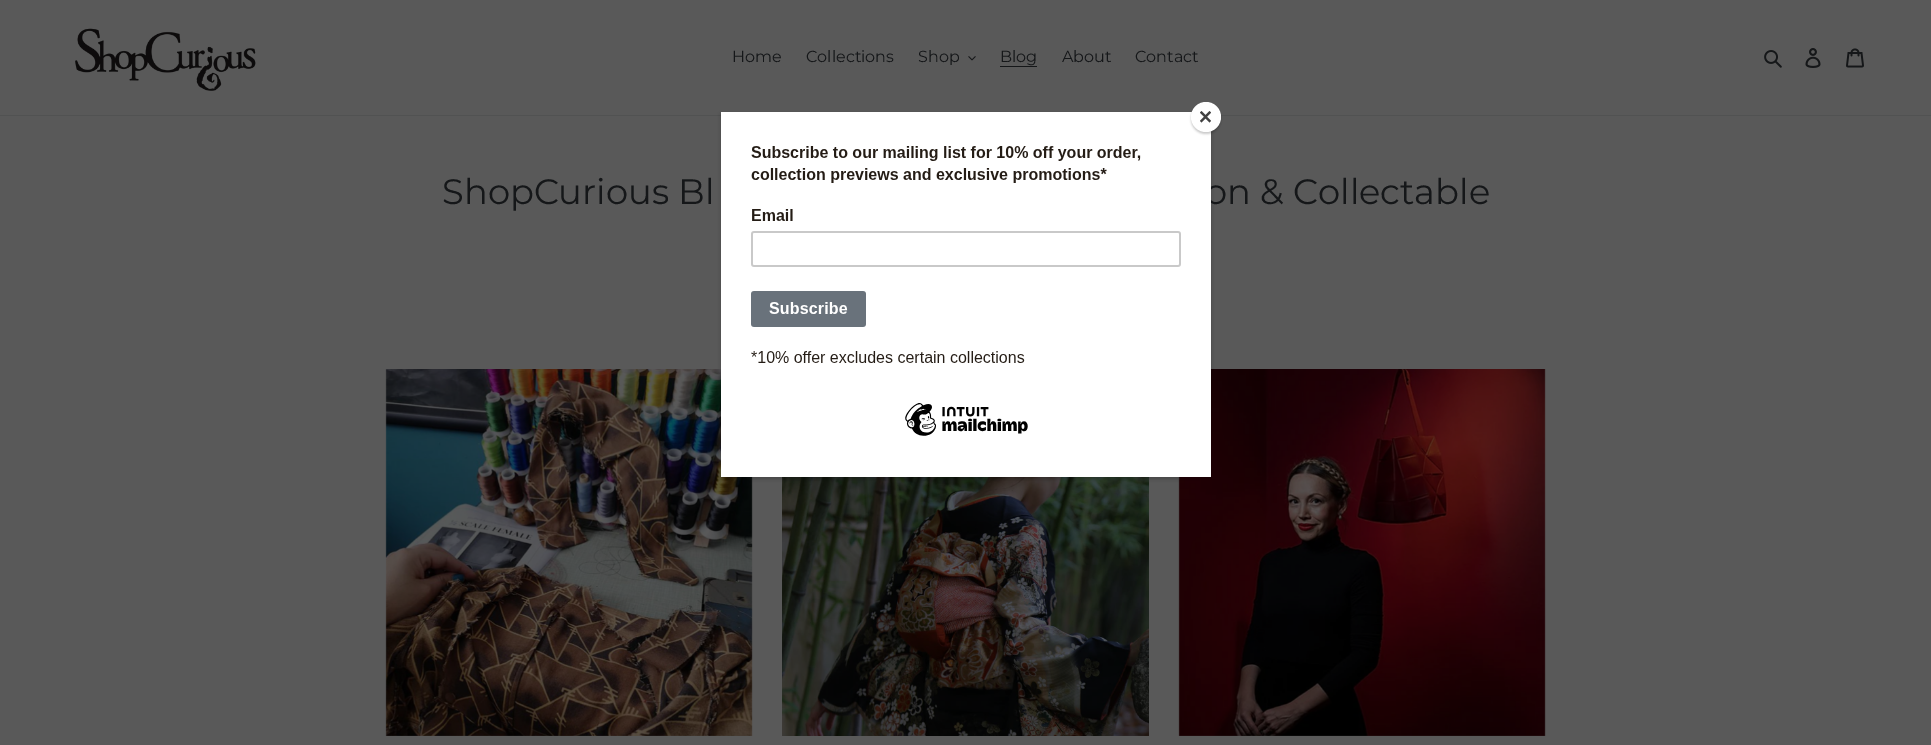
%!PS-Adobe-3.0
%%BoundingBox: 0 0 1931 745
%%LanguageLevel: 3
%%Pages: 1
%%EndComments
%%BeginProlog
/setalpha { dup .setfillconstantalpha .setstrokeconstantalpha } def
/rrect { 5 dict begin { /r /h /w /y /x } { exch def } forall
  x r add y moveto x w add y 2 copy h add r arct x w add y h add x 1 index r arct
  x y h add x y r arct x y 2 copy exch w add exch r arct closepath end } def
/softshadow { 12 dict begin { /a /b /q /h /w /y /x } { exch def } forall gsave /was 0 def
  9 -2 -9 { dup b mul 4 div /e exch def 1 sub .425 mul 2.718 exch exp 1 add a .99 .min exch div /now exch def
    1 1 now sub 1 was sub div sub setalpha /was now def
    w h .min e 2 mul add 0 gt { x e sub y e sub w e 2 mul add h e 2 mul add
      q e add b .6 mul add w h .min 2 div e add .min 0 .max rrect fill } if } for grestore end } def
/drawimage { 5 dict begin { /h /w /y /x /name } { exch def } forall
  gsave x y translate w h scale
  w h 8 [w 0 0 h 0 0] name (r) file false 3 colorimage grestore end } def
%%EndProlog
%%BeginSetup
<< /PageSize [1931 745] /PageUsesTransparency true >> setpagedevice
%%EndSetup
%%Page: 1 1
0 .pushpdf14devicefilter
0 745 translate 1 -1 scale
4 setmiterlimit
0.349 setgray
0 0 1931 745 rectfill
0.318 0.322 0.322 setrgbcolor
0 115 1931 1 rectfill
(images/1.raw) 75 28 181 63 drawimage
(images/2.raw) 968 56 8 5 drawimage
0.082 0.09 0.098 setrgbcolor
1000 66 37 1 rectfill
(images/3.raw) 1764 50 18 18 drawimage
(images/4.raw) 1805 48 16 20 drawimage
(images/5.raw) 1846 48 18 20 drawimage
(images/7.raw) 385 369 368 367 drawimage
(images/8.raw) 782 477 367 259 drawimage
(images/9.raw) 1178 369 368 367 drawimage
0 setgray
721 114 490 365 0 2 0.2 softshadow
/Montserrat-Regular [16 0 0 -16 0 0] selectfont
0.082 0.09 0.098 setrgbcolor
732 62 moveto (Home) show
806 62 moveto (Collections) show
918 62 moveto (Shop) show
1000 62 moveto (Blog) show
1062 62 moveto (About) show
1135 62 moveto (Contact) show
/Montserrat-Regular [35.25 0 0 -35.25 0 0] selectfont
442 204 moveto (ShopCurious Bl) show
1205 204 moveto (on & Collectable) show
(images/6.raw) 721 112 490 365 drawimage
0 setgray
1191 104 30 30 15 1 0.2 softshadow
1 setgray
newpath 1206 117 15 0 360 arc closepath fill
0.255 setgray
newpath 1209.5 111 moveto 1211 112.5 lineto 1201.5 122.5 lineto 1200 121 lineto closepath fill
newpath 1200 112.5 moveto 1201.5 111 lineto 1211 121 lineto 1209.5 122.5 lineto closepath fill
.poppdf14devicefilter showpage
%%EOF
